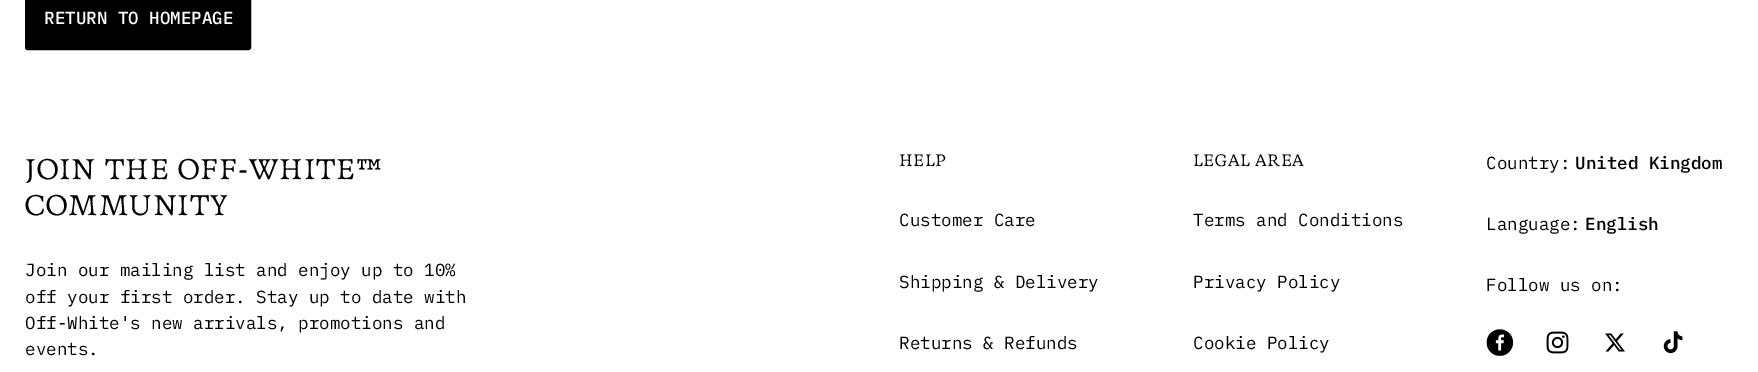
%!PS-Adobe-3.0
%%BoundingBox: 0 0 1758 372
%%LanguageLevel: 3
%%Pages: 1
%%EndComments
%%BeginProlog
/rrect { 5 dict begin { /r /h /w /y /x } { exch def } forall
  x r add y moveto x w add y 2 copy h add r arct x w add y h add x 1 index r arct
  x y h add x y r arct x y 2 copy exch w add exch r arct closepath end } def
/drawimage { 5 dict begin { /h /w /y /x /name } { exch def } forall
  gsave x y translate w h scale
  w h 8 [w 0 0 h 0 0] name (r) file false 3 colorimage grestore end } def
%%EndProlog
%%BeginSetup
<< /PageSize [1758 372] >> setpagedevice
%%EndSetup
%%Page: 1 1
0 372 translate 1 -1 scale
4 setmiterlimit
1 setgray
0 0 1758 372 rectfill
0 setgray
25.5 -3.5 225 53 2 rrect gsave fill grestore
stroke
(images/1.raw) 1486 329 28 27 drawimage
(images/2.raw) 1546 331 23 23 drawimage
(images/3.raw) 1605 333 20 19 drawimage
(images/4.raw) 1663 331 20 23 drawimage
/IBMPlexMono-Medium [17.5 0 0 -17.5 0 0] selectfont
1 setgray
44 24 moveto (RETURN TO HOMEPAGE) show
/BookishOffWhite-Regular [30 0 0 -30 0 0] selectfont
0 setgray
25 179 moveto 0.9 0 (JOIN THE OFF-WHITE™) ashow
25 215 moveto 0.9 0 (COMMUNITY) ashow
/IBMPlexMono-Regular [17.5 0 0 -17.5 0 0] selectfont
25 276 moveto (Join our mailing list and enjoy up to 10%) show
25 303 moveto (off your first order. Stay up to date with) show
25 329 moveto (Off-White's new arrivals, promotions and) show
25 355 moveto (events.) show
/BookishOffWhite-Regular [17.5 0 0 -17.5 0 0] selectfont
899 166 moveto 0.5 0 (HELP) ashow
/IBMPlexMono-Regular [17.5 0 0 -17.5 0 0] selectfont
899 226 moveto (Customer Care) show
899 288 moveto (Shipping & Delivery) show
899 349 moveto (Returns & Refunds) show
/BookishOffWhite-Regular [17.5 0 0 -17.5 0 0] selectfont
1193 166 moveto 0.5 0 (LEGAL AREA) ashow
/IBMPlexMono-Regular [17.5 0 0 -17.5 0 0] selectfont
1193 226 moveto (Terms and Conditions) show
1193 288 moveto (Privacy Policy) show
1193 349 moveto (Cookie Policy) show
1486 169 moveto (Country:) show
/IBMPlexMono-Medium [17.5 0 0 -17.5 0 0] selectfont
1575 169 moveto (United Kingdom) show
/IBMPlexMono-Regular [17.5 0 0 -17.5 0 0] selectfont
1486 230 moveto (Language:) show
/IBMPlexMono-Medium [17.5 0 0 -17.5 0 0] selectfont
1585 230 moveto (English) show
/IBMPlexMono-Regular [17.5 0 0 -17.5 0 0] selectfont
1486 291 moveto (Follow us on:) show
showpage
%%EOF
